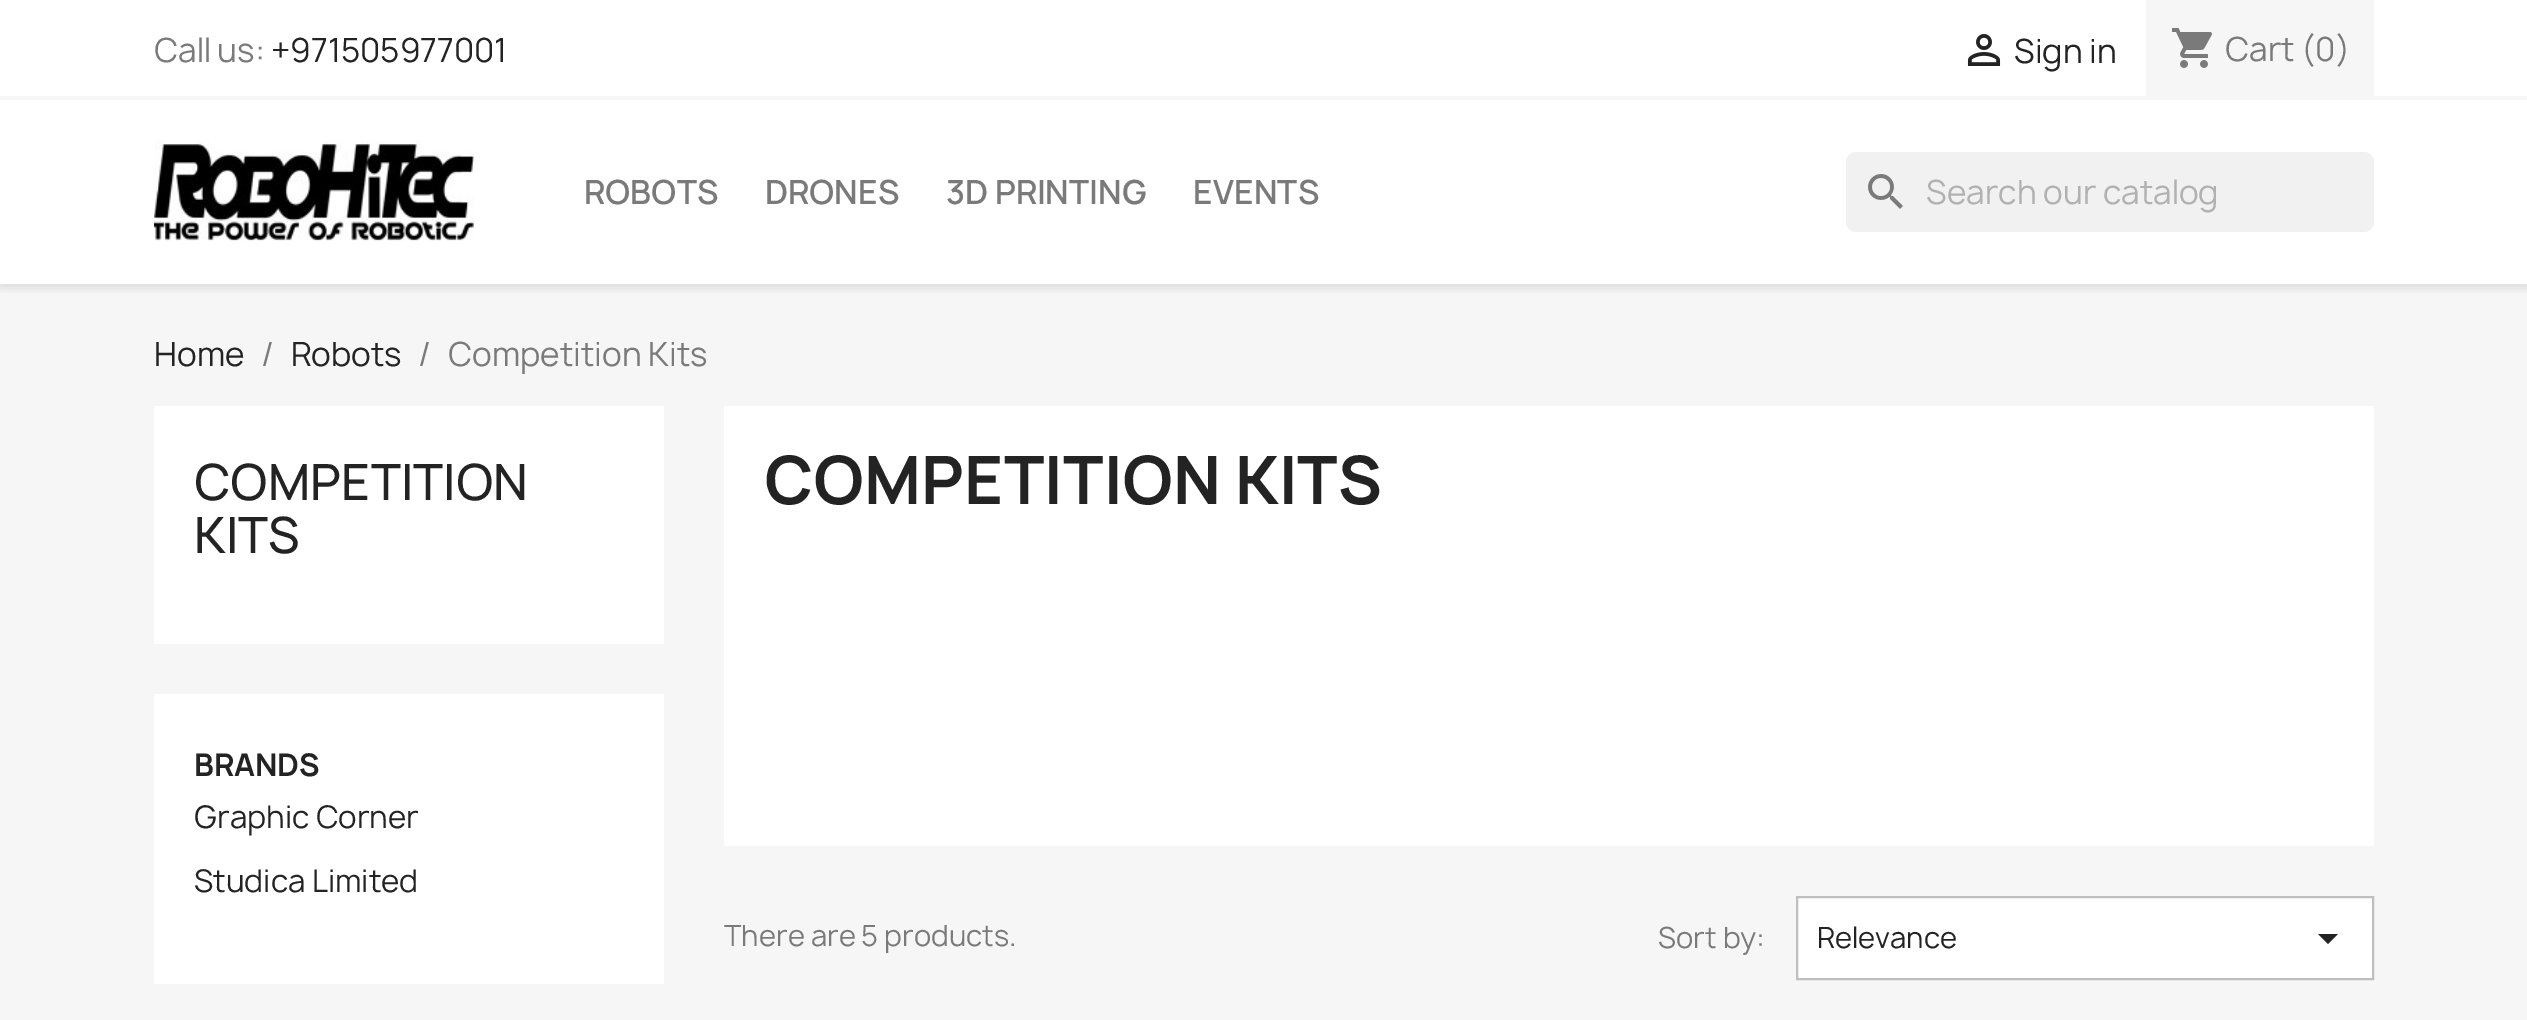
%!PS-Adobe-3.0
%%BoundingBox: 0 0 2527 1020
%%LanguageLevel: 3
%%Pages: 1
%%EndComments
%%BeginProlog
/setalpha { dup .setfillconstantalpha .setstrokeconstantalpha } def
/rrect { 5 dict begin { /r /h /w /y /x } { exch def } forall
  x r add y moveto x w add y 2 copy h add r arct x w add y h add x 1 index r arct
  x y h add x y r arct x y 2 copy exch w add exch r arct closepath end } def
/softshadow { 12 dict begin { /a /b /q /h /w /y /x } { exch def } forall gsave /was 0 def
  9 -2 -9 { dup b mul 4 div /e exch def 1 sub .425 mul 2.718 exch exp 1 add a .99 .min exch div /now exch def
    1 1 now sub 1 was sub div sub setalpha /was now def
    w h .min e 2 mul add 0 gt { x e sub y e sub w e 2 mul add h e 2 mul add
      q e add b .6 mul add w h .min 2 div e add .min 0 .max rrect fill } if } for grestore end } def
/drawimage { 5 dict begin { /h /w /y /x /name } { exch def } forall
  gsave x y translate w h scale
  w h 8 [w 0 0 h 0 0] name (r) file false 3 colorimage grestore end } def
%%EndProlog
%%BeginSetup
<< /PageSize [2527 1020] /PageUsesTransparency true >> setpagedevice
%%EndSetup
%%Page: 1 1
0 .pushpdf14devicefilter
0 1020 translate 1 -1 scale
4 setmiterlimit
1 setgray
0 0 2527 1020 rectfill
0.965 setgray
0 284 2527 736 rectfill
gsave
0 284 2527 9 rectclip
0 setgray
0 4 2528 284 0 5 0.11 softshadow
grestore
0 96 2527 4 rectfill
(images/1.raw) 1967 34 34 32 drawimage
2146 0 228 96 rectfill
(images/2.raw) 2172 28 40 40 drawimage
(images/3.raw) 154 140 320 101 drawimage
0.945 setgray
1846 152 528 80 10 rrect fill
(images/4.raw) 1868 174 35 35 drawimage
1 setgray
154 406 510 238 rectfill
154 694 510 290 rectfill
724 406 1650 440 rectfill
newpath 1797 897 moveto 2373 897 lineto 2373 979 lineto 1797 979 lineto closepath gsave fill grestore
0.749 setgray
2 setlinewidth
stroke
0.137 setgray
newpath 2318 934 moveto 2338 934 lineto 2328 944 lineto closepath fill
/Manrope-Regular [32 0 0 -32 0 0] selectfont
0.478 setgray
154 62 moveto (Call us:) show
0.137 setgray
271 62 moveto (+971505977001) show
2014 63 moveto (Sign in) show
0.478 setgray
2225 61 moveto (Cart \(0\)) show
/Manrope-SemiBold [32 0 0 -32 0 0] selectfont
584 204 moveto (ROBOTS) show
765 204 moveto (DRONES) show
946 204 moveto (3D PRINTING) show
1193 204 moveto (EVENTS) show
/Manrope-Regular [32 0 0 -32 0 0] selectfont
0.694 setgray
1926 204 moveto (Search our catalog) show
0.137 setgray
154 366 moveto (Home) show
0.478 setgray
261 366 moveto (/) show
0.137 setgray
291 366 moveto (Robots) show
0.478 setgray
418 366 moveto (/) show
448 366 moveto (Competition Kits) show
/Manrope-Medium [48 0 0 -48 0 0] selectfont
0.137 setgray
194 500 moveto (COMPETITION) show
194 553 moveto (KITS) show
/Manrope-Bold [30 0 0 -30 0 0] selectfont
194 776 moveto (BRANDS) show
/Manrope-Regular [30 0 0 -30 0 0] selectfont
194 828 moveto (Graphic Corner) show
194 892 moveto (Studica Limited) show
/Manrope-Bold [64 0 0 -64 0 0] selectfont
764 504 moveto (COMPETITION KITS) show
/Manrope-Regular [28 0 0 -28 0 0] selectfont
0.478 setgray
724 946 moveto (There are 5 products.) show
1658 948 moveto (Sort by:) show
0.137 setgray
1817 948 moveto (Relevance) show
.poppdf14devicefilter showpage
%%EOF
